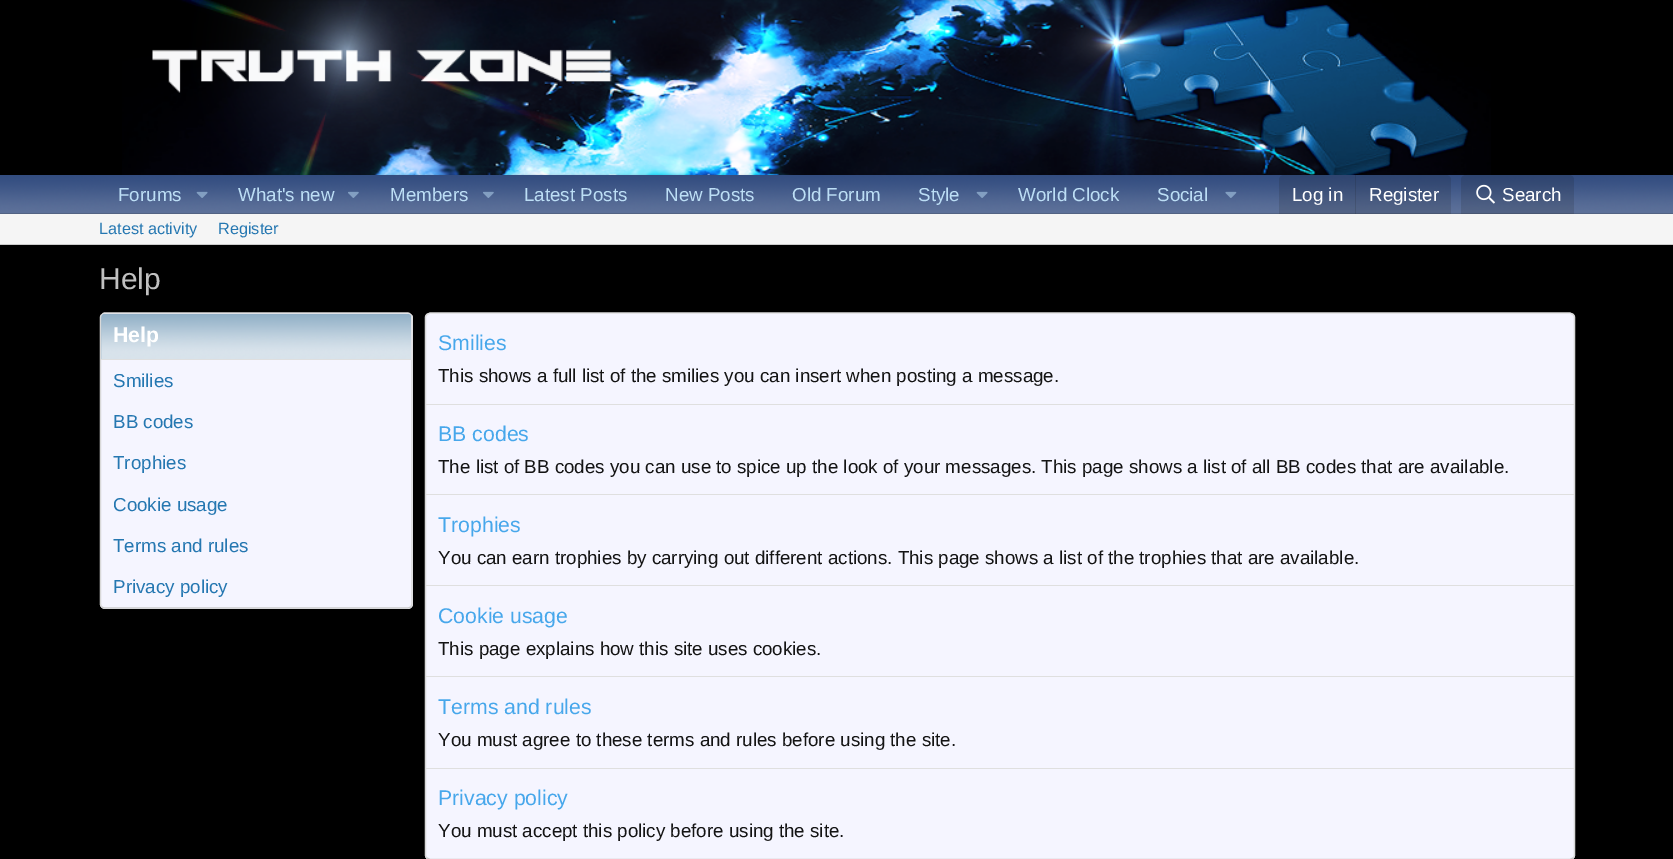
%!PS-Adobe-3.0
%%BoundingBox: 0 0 1673 859
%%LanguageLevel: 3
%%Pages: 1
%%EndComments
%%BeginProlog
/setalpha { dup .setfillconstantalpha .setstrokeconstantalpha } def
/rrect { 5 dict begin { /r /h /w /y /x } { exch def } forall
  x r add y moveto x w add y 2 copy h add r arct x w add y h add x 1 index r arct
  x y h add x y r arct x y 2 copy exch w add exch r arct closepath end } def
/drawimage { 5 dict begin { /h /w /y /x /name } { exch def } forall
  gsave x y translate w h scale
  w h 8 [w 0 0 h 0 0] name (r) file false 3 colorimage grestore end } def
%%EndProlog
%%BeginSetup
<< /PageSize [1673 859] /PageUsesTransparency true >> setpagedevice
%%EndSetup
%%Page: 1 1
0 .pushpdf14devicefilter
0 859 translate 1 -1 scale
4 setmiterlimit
1 setgray
0 0 1673 859 rectfill
0 setgray
0 0 1673 175 rectfill
(images/1.raw) 122 0 1369 175 drawimage
(images/2.raw) 0 175 1673 39 drawimage
(images/3.raw) 196 191 12 7 drawimage
(images/4.raw) 348 191 11 7 drawimage
(images/5.raw) 483 191 11 7 drawimage
(images/6.raw) 976 191 12 7 drawimage
(images/7.raw) 1225 191 12 7 drawimage
0.15 setalpha
0.078 setgray
newpath 1284 175 moveto 1446 175 lineto 1449 175 1451 177 1451 180 curveto 1451 214 lineto 1279 214 lineto 1279 180 lineto 1279 177 1281 175 1284 175 curveto closepath fill
1355 175 1 39 rectfill
newpath 1466 175 moveto 1569 175 lineto 1572 175 1574 177 1574 180 curveto 1574 214 lineto 1461 214 lineto 1461 180 lineto 1461 177 1463 175 1466 175 curveto closepath fill
1 setalpha
(images/8.raw) 1476 184 19 20 drawimage
0.961 setgray
0 214 1673 30 rectfill
0.796 setgray
0 244 1673 1 rectfill
0 setgray
0 245 1673 614 rectfill
0.961 0.961 1 setrgbcolor
100 313 313 296 5 rrect fill
0.875 setgray
1.2 setlinewidth
newpath 102 314.5 moveto 102.5 313.5 104 313 105 313 curveto 407.5 313 lineto 408.5 313 410 313.5 410.5 314.5 curveto stroke
0.847 setgray
newpath 410.5 314.5 moveto 411.5 315 412 316.5 412 317.5 curveto 412 604 lineto 412 605 411.5 606 410.5 607 curveto stroke
0.796 setgray
newpath 410.5 607 moveto 410 607.5 408.5 608 407.5 608 curveto 105 608 lineto 104 608 102.5 607.5 102 607 curveto stroke
0.847 setgray
newpath 102 607 moveto 101 606 100.5 605 100.5 604 curveto 100.5 317.5 lineto 100.5 316.5 101 315 102 314.5 curveto stroke
0.678 0.753 0.812 setrgbcolor
newpath 105 314 moveto 407 314 lineto 409 314 411 316 411 318 curveto 411 360 lineto 101 360 lineto 101 318 lineto 101 316 103 314 105 314 curveto closepath fill
(images/9.raw) 101 313 311 47 drawimage
0.875 setgray
101 359 310 1 rectfill
0.961 0.961 1 setrgbcolor
425 313 1150 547 5 rrect fill
0.875 setgray
newpath 427 314.5 moveto 430 313 lineto 1570 313 lineto 1573 314.5 lineto stroke
0.847 setgray
newpath 1573 314.5 moveto 1574 315 1574.5 316.5 1574.5 317.5 curveto 1574.5 855 lineto 1574.5 856 1574 857.5 1573 858 curveto stroke
0.796 setgray
newpath 1573 858 moveto 1570 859.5 lineto 430 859.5 lineto 427 858 lineto stroke
0.847 setgray
newpath 427 858 moveto 426 857.5 425.5 856 425.5 855 curveto 425.5 317.5 lineto 425.5 316.5 426 315 427 314.5 curveto stroke
0.875 setgray
426 404 1148 1 rectfill
426 494 1148 1 rectfill
426 585 1148 1 rectfill
426 676 1148 1 rectfill
426 768 1148 1 rectfill
/LiberationSans-Regular [18.75 0 0 -18.75 0 0] selectfont
0.737 0.871 0.961 setrgbcolor
118 201 moveto (Forums) show
238 201 moveto (What's new) show
390 201 moveto (Members) show
524 201 moveto (Latest Posts) show
665 201 moveto (New Posts) show
792 201 moveto (Old Forum) show
918 201 moveto (Style) show
1018 201 moveto (World Clock) show
1157 201 moveto (Social) show
1 setgray
1292 201 moveto (Log in) show
1369 201 moveto (Register) show
1502 201 moveto (Search) show
/LiberationSans-Regular [16.25 0 0 -16.25 0 0] selectfont
0.145 0.467 0.694 setrgbcolor
99 234 moveto (Latest activity) show
218 234 moveto (Register) show
/LiberationSans-Regular [30 0 0 -30 0 0] selectfont
0.753 setgray
99 289 moveto (Help) show
/LiberationSans-Bold [21.25 0 0 -21.25 0 0] selectfont
1 setgray
113 342 moveto (Help) show
/LiberationSans-Regular [18.75 0 0 -18.75 0 0] selectfont
0.145 0.467 0.694 setrgbcolor
113 387 moveto (Smilies) show
113 428 moveto (BB codes) show
113 469 moveto (Trophies) show
113 511 moveto (Cookie usage) show
113 552 moveto (Terms and rules) show
113 593 moveto (Privacy policy) show
/LiberationSans-Regular [21.25 0 0 -21.25 0 0] selectfont
0.278 0.655 0.922 setrgbcolor
438 350 moveto (Smilies) show
/LiberationSans-Regular [18.75 0 0 -18.75 0 0] selectfont
0.078 setgray
438 382 moveto (This shows a full list of the smilies you can insert when posting a message.) show
/LiberationSans-Regular [21.25 0 0 -21.25 0 0] selectfont
0.278 0.655 0.922 setrgbcolor
438 441 moveto (BB codes) show
/LiberationSans-Regular [18.75 0 0 -18.75 0 0] selectfont
0.078 setgray
438 473 moveto (The list of BB codes you can use to spice up the look of your messages. This page shows a list of all BB codes that are available.) show
/LiberationSans-Regular [21.25 0 0 -21.25 0 0] selectfont
0.278 0.655 0.922 setrgbcolor
438 532 moveto (Trophies) show
/LiberationSans-Regular [18.75 0 0 -18.75 0 0] selectfont
0.078 setgray
438 564 moveto (You can earn trophies by carrying out different actions. This page shows a list of the trophies that are available.) show
/LiberationSans-Regular [21.25 0 0 -21.25 0 0] selectfont
0.278 0.655 0.922 setrgbcolor
438 623 moveto (Cookie usage) show
/LiberationSans-Regular [18.75 0 0 -18.75 0 0] selectfont
0.078 setgray
438 655 moveto (This page explains how this site uses cookies.) show
/LiberationSans-Regular [21.25 0 0 -21.25 0 0] selectfont
0.278 0.655 0.922 setrgbcolor
438 714 moveto (Terms and rules) show
/LiberationSans-Regular [18.75 0 0 -18.75 0 0] selectfont
0.078 setgray
438 746 moveto (You must agree to these terms and rules before using the site.) show
/LiberationSans-Regular [21.25 0 0 -21.25 0 0] selectfont
0.278 0.655 0.922 setrgbcolor
438 805 moveto (Privacy policy) show
/LiberationSans-Regular [18.75 0 0 -18.75 0 0] selectfont
0.078 setgray
438 837 moveto (You must accept this policy before using the site.) show
.poppdf14devicefilter showpage
%%EOF
